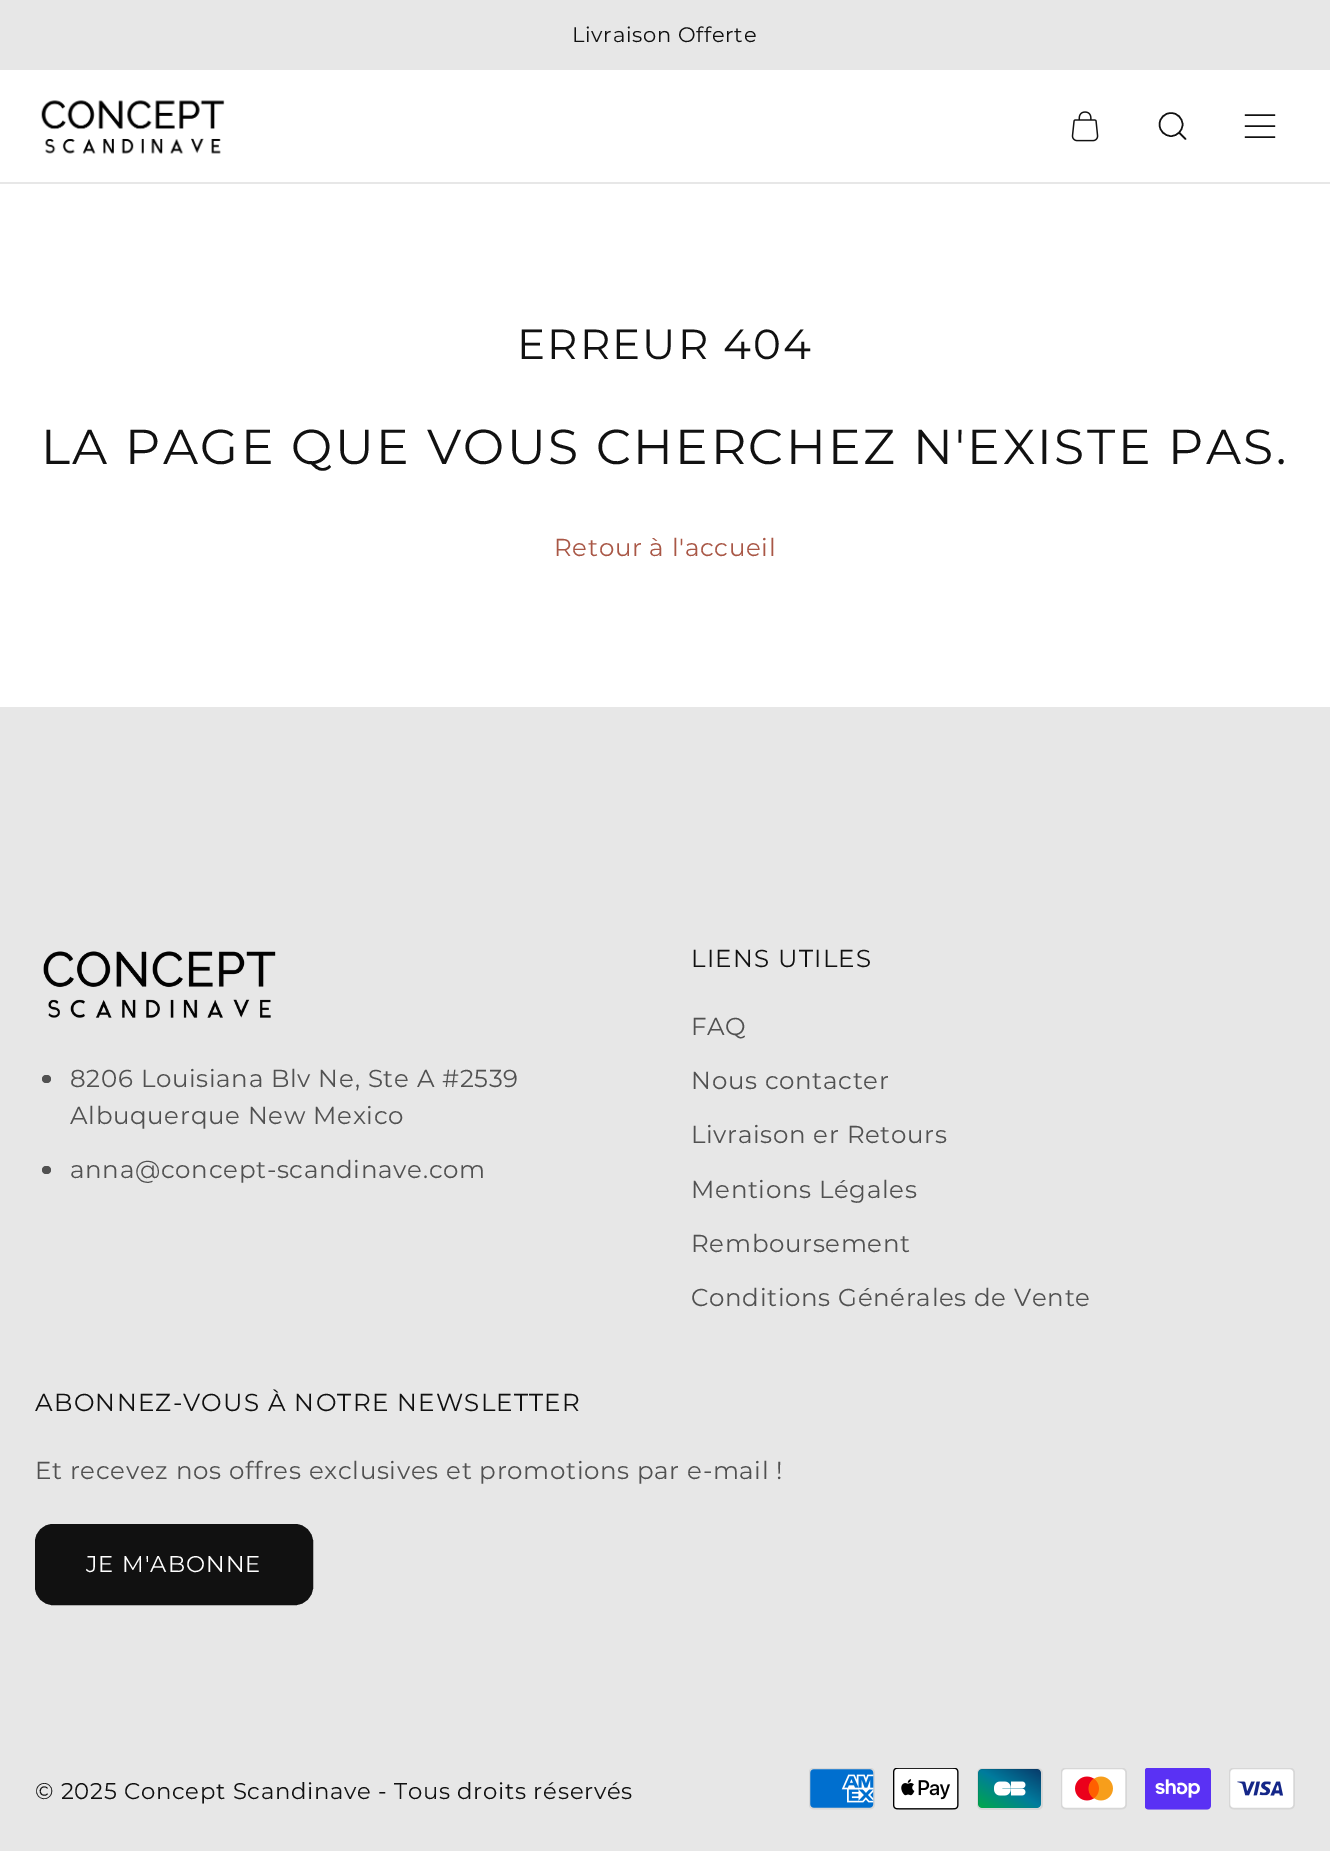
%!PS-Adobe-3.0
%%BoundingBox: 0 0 1330 1851
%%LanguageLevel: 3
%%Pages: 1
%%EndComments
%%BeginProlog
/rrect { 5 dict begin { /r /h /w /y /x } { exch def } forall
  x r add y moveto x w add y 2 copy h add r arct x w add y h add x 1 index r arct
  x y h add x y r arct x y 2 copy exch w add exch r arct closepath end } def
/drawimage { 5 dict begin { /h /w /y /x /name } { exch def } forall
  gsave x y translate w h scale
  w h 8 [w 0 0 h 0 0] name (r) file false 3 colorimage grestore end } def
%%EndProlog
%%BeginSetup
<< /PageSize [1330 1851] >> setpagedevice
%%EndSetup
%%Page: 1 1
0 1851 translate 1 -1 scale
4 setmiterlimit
0.906 setgray
0 0 1330 1851 rectfill
1 setgray
0 70 1330 112 rectfill
(images/1.raw) 41 100 184 54 drawimage
(images/2.raw) 1071 111 28 31 drawimage
0.067 setgray
1.5 setlinewidth
newpath 1171 124.5 11.5 0 360 arc closepath stroke
1 setlinecap
1 setlinejoin
newpath 1185.5 139 moveto 1179.5 133 lineto stroke
newpath 1245.5 115 moveto 1274.5 115 lineto closepath 1245.5 137 moveto 1274.5 137 lineto closepath 1245.5 126 moveto 1274.5 126 lineto closepath stroke
1 setgray
0 184 1330 523 rectfill
(images/3.raw) 43 951 233 67 drawimage
0.318 setgray
42 1075 9 8 4 rrect fill
42 1166 9 8 4 rrect fill
0.067 setgray
36 1525 276 79 17 rrect gsave fill grestore
2 setlinewidth
0 setlinecap
0 setlinejoin
stroke
(images/4.raw) 809 1768 66 42 drawimage
(images/5.raw) 893 1768 66 42 drawimage
(images/6.raw) 977 1768 66 42 drawimage
(images/7.raw) 1061 1768 66 42 drawimage
(images/8.raw) 1145 1768 66 42 drawimage
(images/9.raw) 1229 1768 66 42 drawimage
/Montserrat-Regular [21 0 0 -21 0 0] selectfont
572 42 moveto 0.7 0 (Livraison Offerte) ashow
/Montserrat-Regular [42 0 0 -42 0 0] selectfont
517 359 moveto 2.1 0 (ERREUR 404) ashow
/Montserrat-Regular [49 0 0 -49 0 0] selectfont
41 464 moveto 2.45 0 (LA PAGE QUE VOUS CHERCHEZ N'EXISTE PAS.) ashow
/Montserrat-Regular [24.5 0 0 -24.5 0 0] selectfont
0.663 0.341 0.275 setrgbcolor
554 556 moveto 0.7 0 (Retour à l'accueil) ashow
0.318 setgray
70 1087 moveto 0.7 0 (8206 Louisiana Blv Ne, Ste A #2539) ashow
70 1124 moveto 0.7 0 (Albuquerque New Mexico) ashow
70 1178 moveto 0.7 0 (anna@concept-scandinave.com) ashow
0.067 setgray
691 967 moveto 1.25 0 (LIENS UTILES) ashow
0.318 setgray
691 1035 moveto 0.7 0 (FAQ) ashow
691 1089 moveto 0.7 0 (Nous contacter) ashow
691 1143 moveto 0.7 0 (Livraison er Retours) ashow
691 1198 moveto 0.7 0 (Mentions Légales) ashow
691 1252 moveto 0.7 0 (Remboursement) ashow
691 1306 moveto 0.7 0 (Conditions Générales de Vente) ashow
0.067 setgray
35 1411 moveto 1.25 0 (ABONNEZ-VOUS À NOTRE NEWSLETTER) ashow
0.318 setgray
35 1479 moveto 0.7 0 (Et recevez nos offres exclusives et promotions par e-mail !) ashow
/Montserrat-Regular [22.75 0 0 -22.75 0 0] selectfont
1 setgray
86 1572 moveto 1.1 0 (JE M'ABONNE) ashow
0.067 setgray
35 1799 moveto 0.7 0 (© 2025 Concept Scandinave - Tous droits réservés) ashow
showpage
%%EOF
